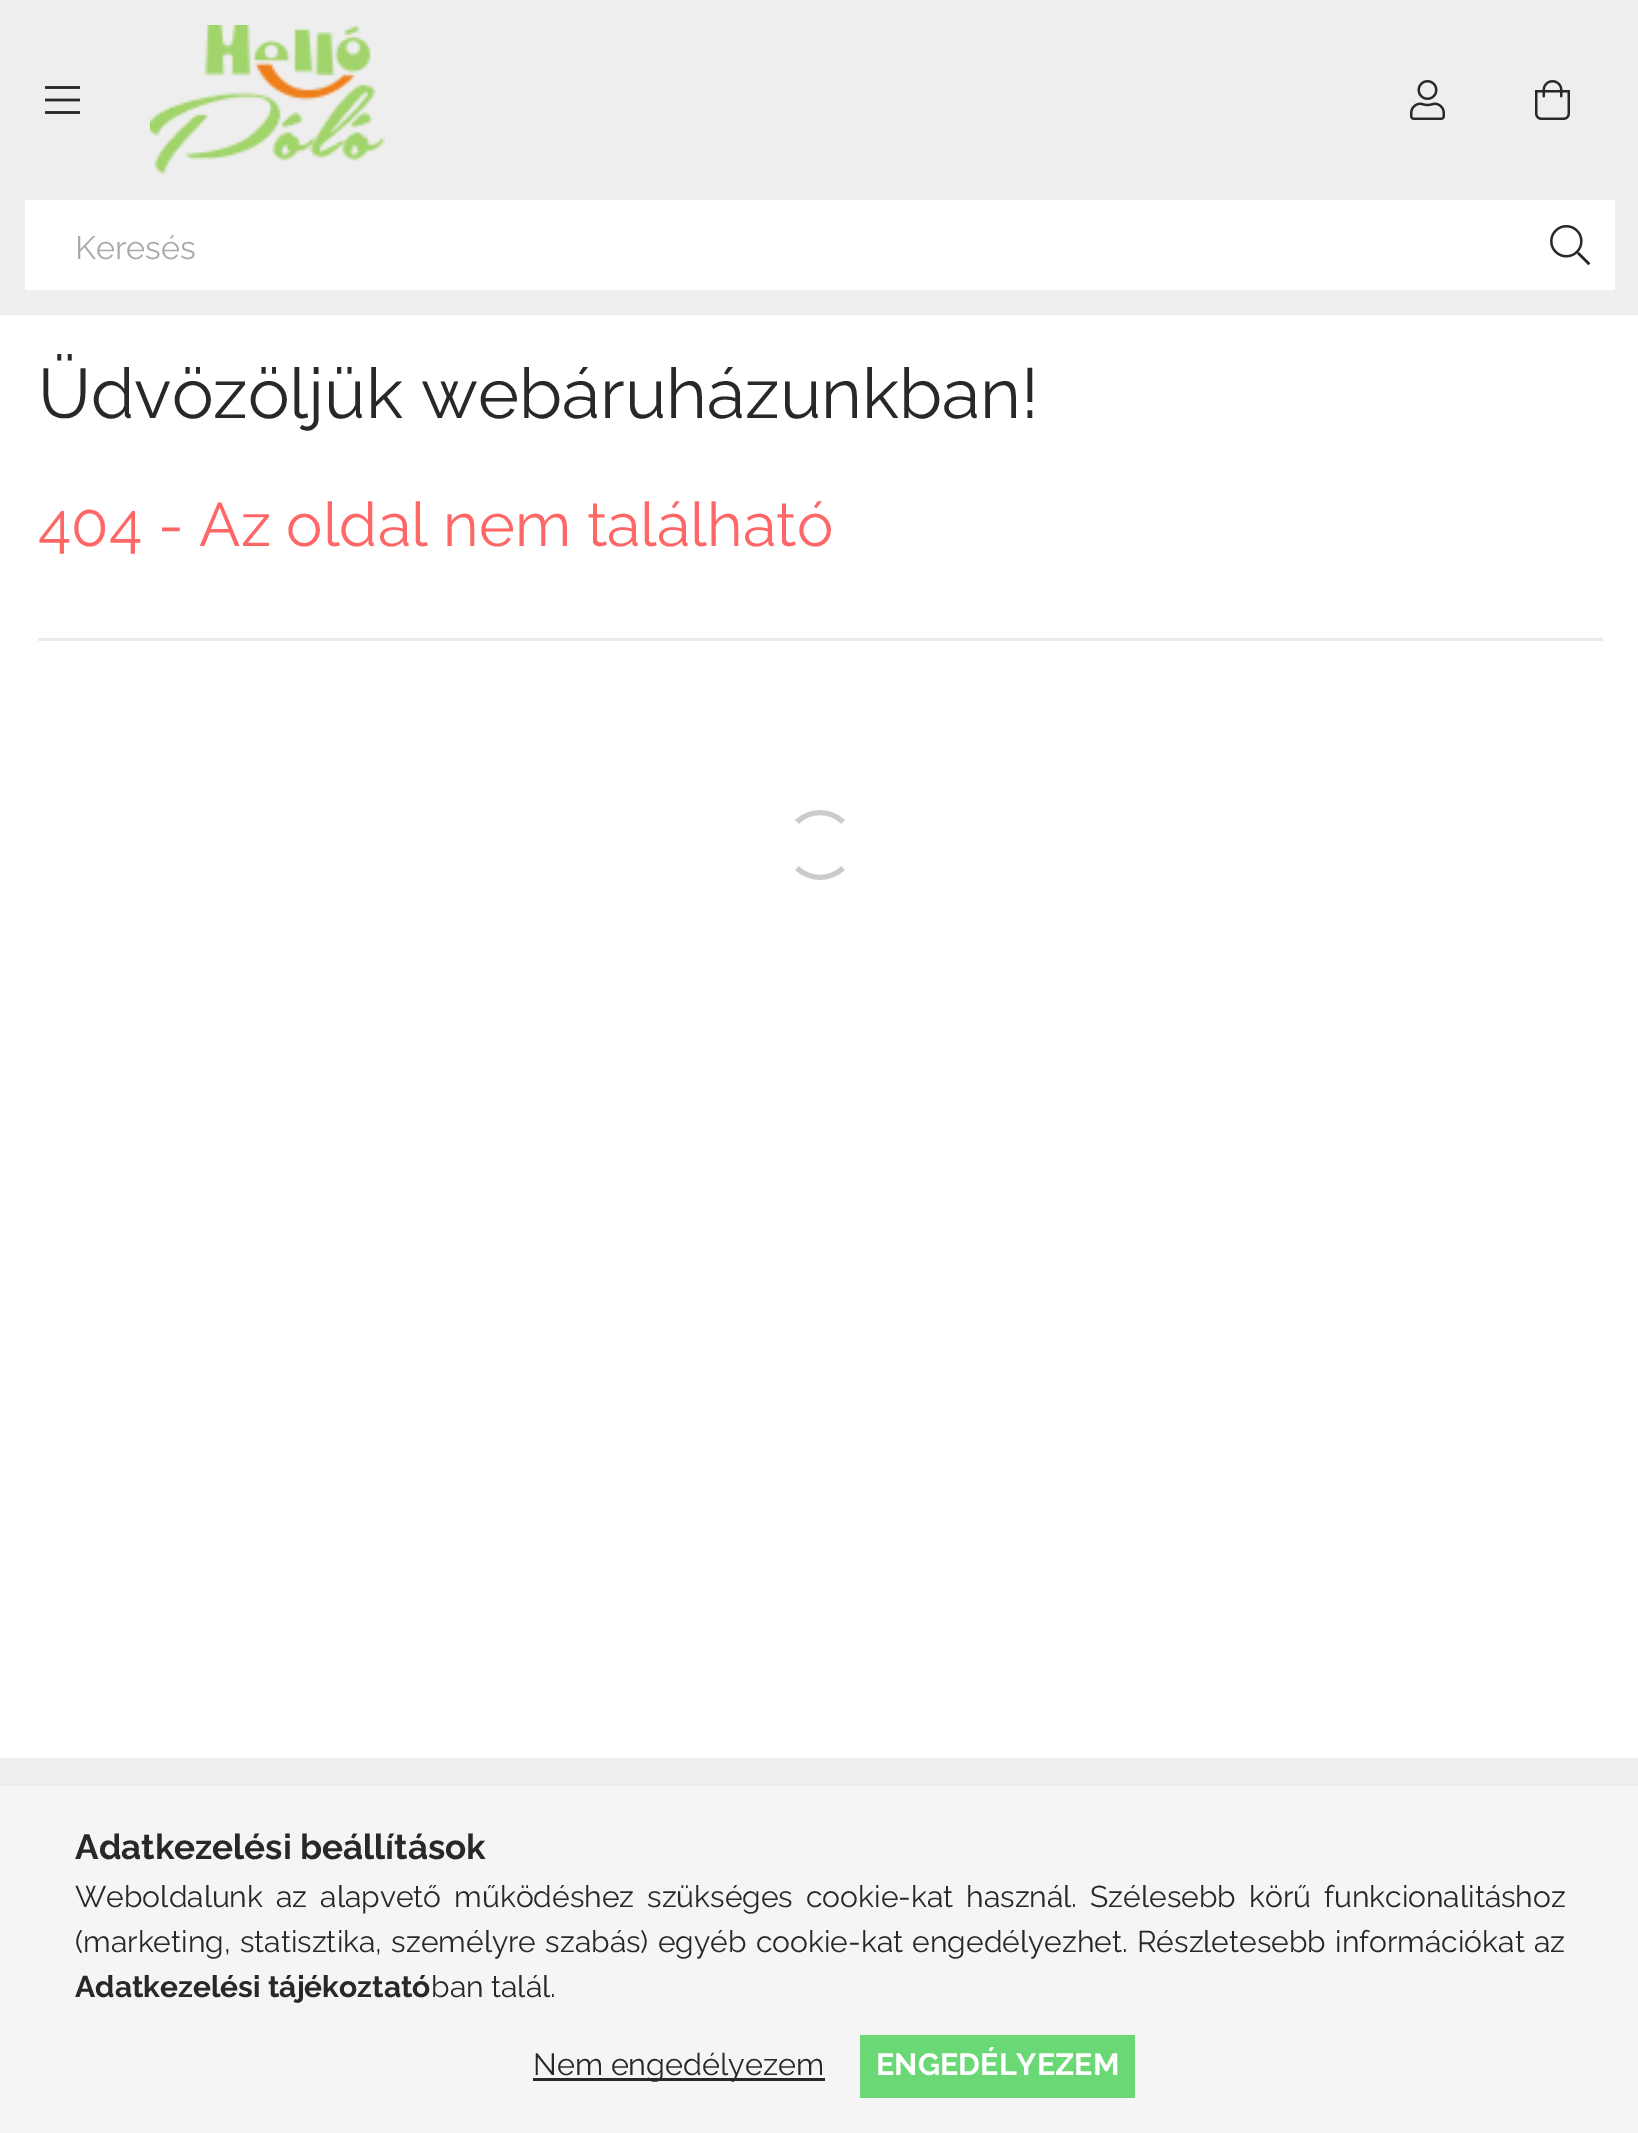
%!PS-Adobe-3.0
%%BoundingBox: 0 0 1638 2133
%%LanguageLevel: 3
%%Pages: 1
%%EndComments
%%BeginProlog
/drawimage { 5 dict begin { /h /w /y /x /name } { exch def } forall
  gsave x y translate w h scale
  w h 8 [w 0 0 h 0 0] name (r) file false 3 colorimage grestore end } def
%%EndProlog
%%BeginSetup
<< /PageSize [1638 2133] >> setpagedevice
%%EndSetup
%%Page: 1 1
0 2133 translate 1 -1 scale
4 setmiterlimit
1 setgray
0 0 1638 2133 rectfill
0.933 setgray
0 0 1638 315 rectfill
(images/1.raw) 45 86 35 28 drawimage
(images/2.raw) 150 25 235 150 drawimage
(images/3.raw) 1410 80 35 40 drawimage
(images/4.raw) 1535 80 35 40 drawimage
1 setgray
25 200 1590 90 rectfill
(images/5.raw) 1550 225 41 40 drawimage
0.918 setgray
38 638 1565 3 rectfill
0.8 setgray
5 setlinewidth
newpath 797 822 moveto 809.5 809.5 830.5 809.5 843 822 curveto stroke
newpath 843 868 moveto 830.5 880.5 809.5 880.5 797 868 curveto stroke
0.933 setgray
0 1758 1638 25 rectfill
0.961 setgray
0 1786 1638 347 rectfill
0.918 setgray
0 1783 1638 3 rectfill
0.157 setgray
533 2078 292 3 rectfill
0.42 0.847 0.463 setrgbcolor
860 2035 275 63 rectfill
/Raleway-Regular [32.5 0 0 -32.5 0 0] selectfont
0.667 setgray
75 259 moveto (Keresés) show
/Raleway-Regular [70 0 0 -70 0 0] selectfont
0.157 setgray
38 418 moveto (Üdvözöljük webáruházunkban!) show
/Raleway-Regular [61.2 0 0 -61.2 0 0] selectfont
1 0.4 0.4 setrgbcolor
38 546 moveto (404 - Az oldal nem található) show
/Raleway-Bold [35 0 0 -35 0 0] selectfont
0.157 setgray
75 1859 moveto (Adatkezelési beállítások) show
/Raleway-Regular [30 0 0 -30 0 0] selectfont
75 1907 moveto 5.5 0 32 (Weboldalunk az alapvető működéshez szükséges cookie-kat használ. Szélesebb körű funkcionalitáshoz) widthshow
75 1952 moveto 1.75 0 32 (\(marketing, statisztika, személyre szabás\) egyéb cookie-kat engedélyezhet. Részletesebb információkat az) widthshow
/Raleway-Bold [30 0 0 -30 0 0] selectfont
75 1997 moveto (Adatkezelési tájékoztató) show
/Raleway-Regular [30 0 0 -30 0 0] selectfont
431 1997 moveto (ban talál.) show
/Raleway-Regular [30.6 0 0 -30.6 0 0] selectfont
533 2075 moveto (Nem engedélyezem) show
/Raleway-Bold [30.6 0 0 -30.6 0 0] selectfont
1 setgray
876 2075 moveto (ENGEDÉLYEZEM) show
showpage
%%EOF
